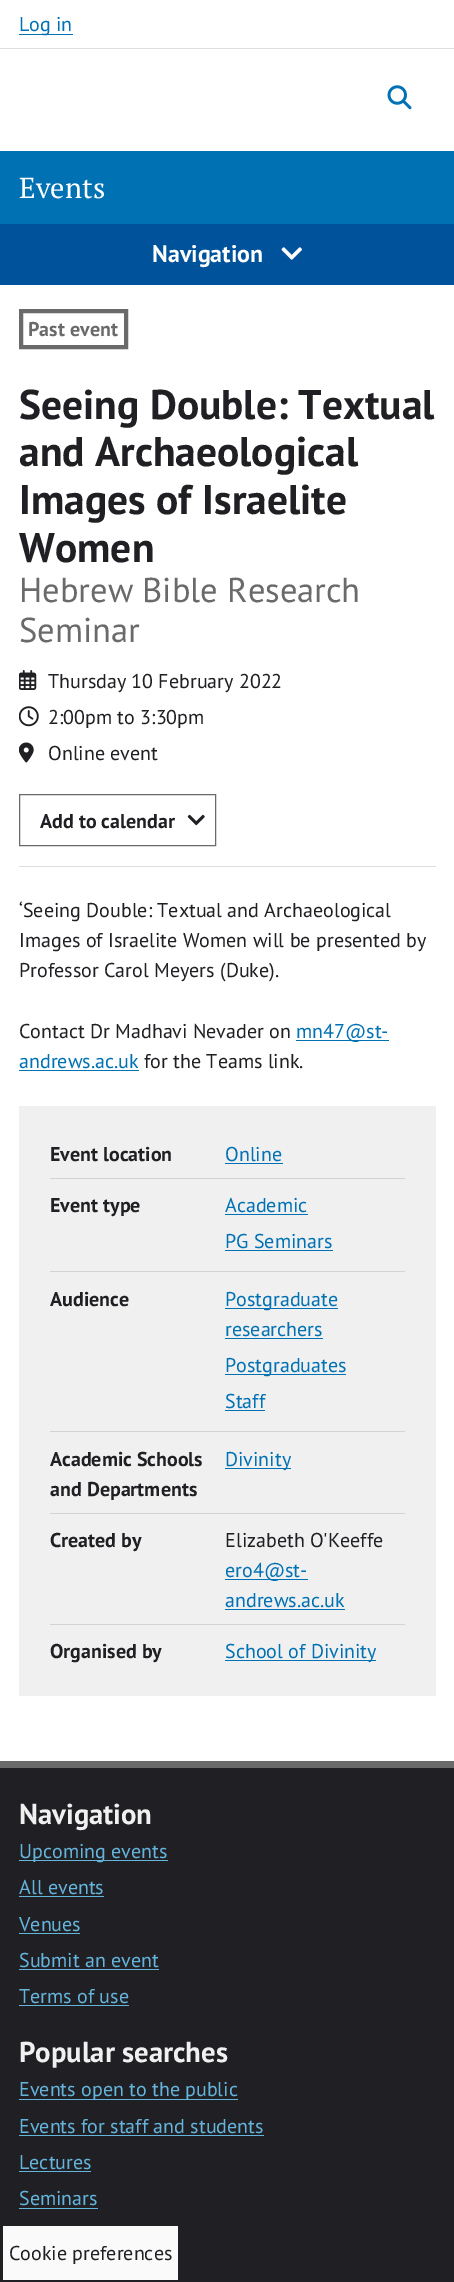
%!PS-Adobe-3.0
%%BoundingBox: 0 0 454 2282
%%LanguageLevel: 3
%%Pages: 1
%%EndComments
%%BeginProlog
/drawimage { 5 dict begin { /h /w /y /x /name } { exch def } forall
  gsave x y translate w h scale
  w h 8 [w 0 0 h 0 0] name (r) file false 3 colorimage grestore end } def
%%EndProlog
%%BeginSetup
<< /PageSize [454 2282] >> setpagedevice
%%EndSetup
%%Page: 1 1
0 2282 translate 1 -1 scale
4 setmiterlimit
1 setgray
0 0 454 2282 rectfill
0.871 setgray
0 48 454 1 rectfill
0 0.443 0.702 setrgbcolor
19 34 54 1 rectfill
(images/1.raw) 387 85 25 25 drawimage
0 151 454 73 rectfill
0 0.325 0.608 setrgbcolor
0 224 454 61 rectfill
(images/2.raw) 281 247 21 13 drawimage
0.416 0.416 0.42 setrgbcolor
4 setlinewidth
21 311 105 36 rectstroke
0.871 setgray
19 866 417 1 rectfill
(images/3.raw) 19 670 18 20 drawimage
(images/4.raw) 19 706 20 21 drawimage
(images/5.raw) 19 742 15 21 drawimage
0.416 0.416 0.42 setrgbcolor
1 setlinewidth
19.5 794.5 196 51 rectstroke
(images/6.raw) 187 814 18 12 drawimage
0 0.443 0.702 setrgbcolor
296 1040 93 1 rectfill
19 1070 120 1 rectfill
0.941 setgray
19 1106 417 590 rectfill
0 0.443 0.702 setrgbcolor
225 1163 58 1 rectfill
0.827 setgray
50 1178 355 1 rectfill
0 0.443 0.702 setrgbcolor
225 1214 83 1 rectfill
225 1250 108 1 rectfill
0.827 setgray
50 1271 355 1 rectfill
0 0.443 0.702 setrgbcolor
225 1308 113 1 rectfill
225 1338 98 1 rectfill
225 1374 121 1 rectfill
225 1410 40 1 rectfill
0.827 setgray
50 1431 355 1 rectfill
0 0.443 0.702 setrgbcolor
225 1468 66 1 rectfill
0.827 setgray
50 1513 355 1 rectfill
0 0.443 0.702 setrgbcolor
225 1579 83 1 rectfill
225 1609 120 1 rectfill
0.827 setgray
50 1624 355 1 rectfill
0 0.443 0.702 setrgbcolor
225 1660 151 1 rectfill
0.125 0.125 0.141 setrgbcolor
0 1768 454 514 rectfill
0.416 0.416 0.42 setrgbcolor
0 1761 454 7 rectfill
0.396 0.706 0.863 setrgbcolor
19 1860 149 1 rectfill
19 1896 85 1 rectfill
19 1933 61 1 rectfill
19 1969 140 1 rectfill
19 2005 110 1 rectfill
19 2099 219 1 rectfill
19 2135 245 1 rectfill
19 2171 72 1 rectfill
19 2208 79 1 rectfill
0.98 setgray
3 2226 175 54 rectfill
/PTSans-Regular [20 0 0 -20 0 0] selectfont
0 0.443 0.702 setrgbcolor
19 31 moveto (Log in) show
/PTSerif-Regular [28.75 0 0 -28.75 0 0] selectfont
1 setgray
19 198 moveto (Events) show
/PTSans-Bold [24 0 0 -24 0 0] selectfont
152 262 moveto (Navigation) show
/PTSans-Bold [20 0 0 -20 0 0] selectfont
0.416 0.416 0.42 setrgbcolor
28 336 moveto (Past event) show
/PTSans-Bold [41.5 0 0 -41.5 0 0] selectfont
0.125 0.125 0.141 setrgbcolor
19 419 moveto (Seeing Double: Textual) show
19 466 moveto (and Archaeological) show
19 514 moveto (Images of Israelite) show
19 562 moveto (Women) show
/PTSans-Regular [34.5 0 0 -34.5 0 0] selectfont
0.416 0.416 0.42 setrgbcolor
19 602 moveto (Hebrew Bible Research) show
19 642 moveto (Seminar) show
/PTSans-Regular [20 0 0 -20 0 0] selectfont
0.125 0.125 0.141 setrgbcolor
48 688 moveto (Thursday 10 February 2022) show
48 724 moveto (2:00pm to 3:30pm) show
48 760 moveto (Online event) show
/PTSans-Bold [20 0 0 -20 0 0] selectfont
40 828 moveto (Add to calendar) show
/PTSans-Regular [20 0 0 -20 0 0] selectfont
19 917 moveto (‘Seeing Double: Textual and Archaeological) show
19 947 moveto (Images of Israelite Women will be presented by) show
19 977 moveto (Professor Carol Meyers \(Duke\).) show
19 1038 moveto (Contact Dr Madhavi Nevader on) show
0 0.443 0.702 setrgbcolor
296 1038 moveto (mn47@st-) show
19 1068 moveto (andrews.ac.uk) show
0.125 0.125 0.141 setrgbcolor
144 1068 moveto (for the Teams link.) show
/PTSans-Bold [20 0 0 -20 0 0] selectfont
50 1161 moveto (Event location) show
/PTSans-Regular [20 0 0 -20 0 0] selectfont
0 0.443 0.702 setrgbcolor
225 1161 moveto (Online) show
/PTSans-Bold [20 0 0 -20 0 0] selectfont
0.125 0.125 0.141 setrgbcolor
50 1212 moveto (Event type) show
/PTSans-Regular [20 0 0 -20 0 0] selectfont
0 0.443 0.702 setrgbcolor
225 1212 moveto (Academic) show
225 1248 moveto (PG Seminars) show
/PTSans-Bold [20 0 0 -20 0 0] selectfont
0.125 0.125 0.141 setrgbcolor
50 1306 moveto (Audience) show
/PTSans-Regular [20 0 0 -20 0 0] selectfont
0 0.443 0.702 setrgbcolor
225 1306 moveto (Postgraduate) show
225 1336 moveto (researchers) show
225 1372 moveto (Postgraduates) show
225 1408 moveto (Staff) show
/PTSans-Bold [20 0 0 -20 0 0] selectfont
0.125 0.125 0.141 setrgbcolor
50 1466 moveto (Academic Schools) show
50 1496 moveto (and Departments) show
/PTSans-Regular [20 0 0 -20 0 0] selectfont
0 0.443 0.702 setrgbcolor
225 1466 moveto (Divinity) show
/PTSans-Bold [20 0 0 -20 0 0] selectfont
0.125 0.125 0.141 setrgbcolor
50 1547 moveto (Created by) show
/PTSans-Regular [20 0 0 -20 0 0] selectfont
225 1547 moveto (Elizabeth O'Keeffe) show
0 0.443 0.702 setrgbcolor
225 1577 moveto (ero4@st-) show
225 1607 moveto (andrews.ac.uk) show
/PTSans-Bold [20 0 0 -20 0 0] selectfont
0.125 0.125 0.141 setrgbcolor
50 1658 moveto (Organised by) show
/PTSans-Regular [20 0 0 -20 0 0] selectfont
0 0.443 0.702 setrgbcolor
225 1658 moveto (School of Divinity) show
/PTSans-Bold [28.75 0 0 -28.75 0 0] selectfont
0.941 setgray
19 1824 moveto (Navigation) show
/PTSans-Regular [20 0 0 -20 0 0] selectfont
0.396 0.706 0.863 setrgbcolor
19 1858 moveto (Upcoming events) show
19 1894 moveto (All events) show
19 1931 moveto (Venues) show
19 1967 moveto (Submit an event) show
19 2003 moveto (Terms of use) show
/PTSans-Bold [28.75 0 0 -28.75 0 0] selectfont
0.941 setgray
19 2062 moveto (Popular searches) show
/PTSans-Regular [20 0 0 -20 0 0] selectfont
0.396 0.706 0.863 setrgbcolor
19 2096 moveto (Events open to the public) show
19 2133 moveto (Events for staff and students) show
19 2169 moveto (Lectures) show
19 2205 moveto (Seminars) show
0.125 0.125 0.141 setrgbcolor
9 2260 moveto (Cookie preferences) show
showpage
%%EOF
